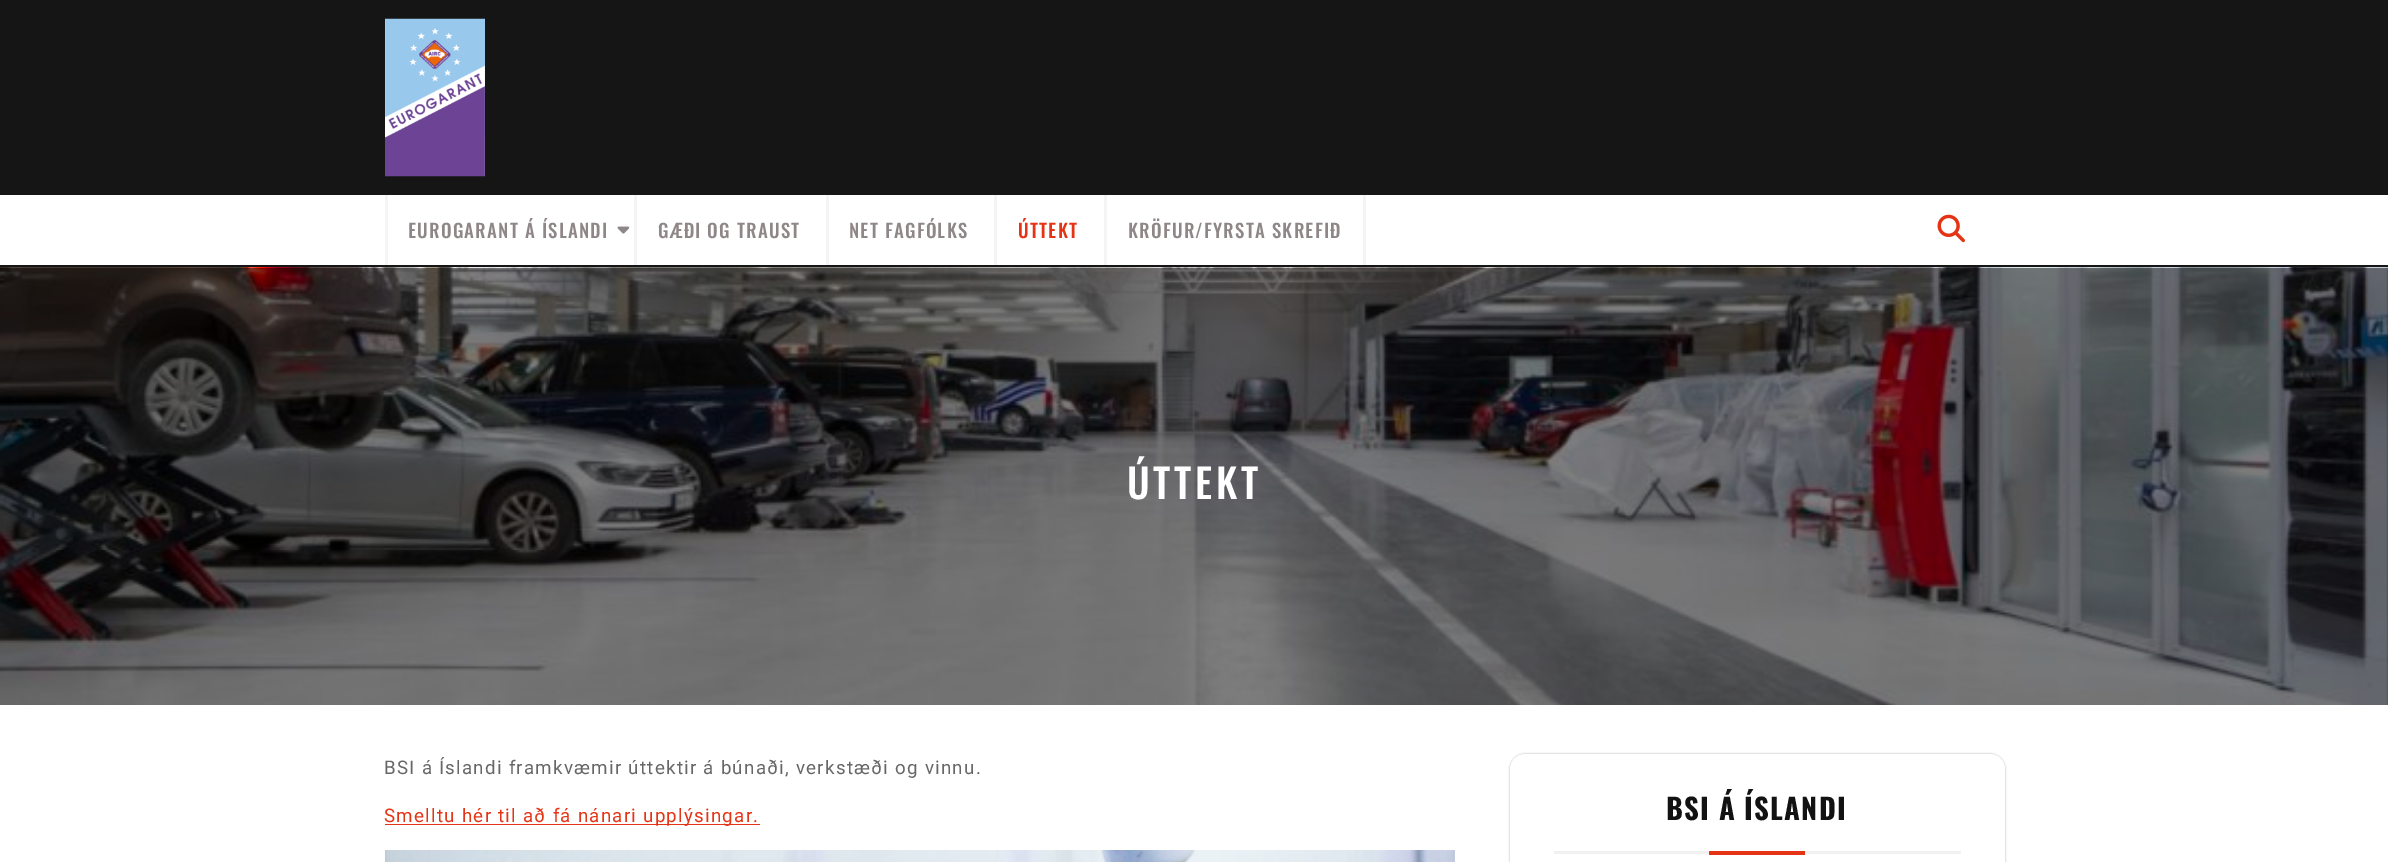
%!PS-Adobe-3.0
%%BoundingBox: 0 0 2388 862
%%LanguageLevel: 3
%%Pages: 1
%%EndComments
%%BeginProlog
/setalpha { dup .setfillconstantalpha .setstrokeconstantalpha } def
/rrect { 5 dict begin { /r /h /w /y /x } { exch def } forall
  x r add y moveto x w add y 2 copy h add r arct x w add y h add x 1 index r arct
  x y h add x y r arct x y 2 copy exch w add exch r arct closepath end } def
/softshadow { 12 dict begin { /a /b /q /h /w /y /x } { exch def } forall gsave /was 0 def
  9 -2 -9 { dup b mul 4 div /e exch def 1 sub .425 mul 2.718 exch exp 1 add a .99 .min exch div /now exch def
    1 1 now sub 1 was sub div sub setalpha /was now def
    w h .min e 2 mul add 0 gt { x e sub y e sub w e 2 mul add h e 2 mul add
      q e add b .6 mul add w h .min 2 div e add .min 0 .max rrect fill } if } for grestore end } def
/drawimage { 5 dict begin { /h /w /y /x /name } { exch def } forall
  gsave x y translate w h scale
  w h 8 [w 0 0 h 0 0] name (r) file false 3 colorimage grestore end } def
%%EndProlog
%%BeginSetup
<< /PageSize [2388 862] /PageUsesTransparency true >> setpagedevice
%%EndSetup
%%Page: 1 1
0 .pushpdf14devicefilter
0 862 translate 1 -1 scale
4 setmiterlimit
1 setgray
0 0 2388 862 rectfill
0.082 setgray
0 0 2388 195 rectfill
(images/1.raw) 385 18 100 159 drawimage
0 265 2388 3 rectfill
0.957 setgray
385 195 3 70 rectfill
(images/2.raw) 617 226 13 8 drawimage
634 195 3 70 rectfill
826 195 3 70 rectfill
994 195 3 70 rectfill
1363 195 3 70 rectfill
1104 195 3 70 rectfill
(images/3.raw) 1937 214 28 29 drawimage
(images/4.raw) 0 267 2388 1 drawimage
0 setgray
0 268 2388 437 rectfill
(images/5.raw) 0 267 2388 438 drawimage
0.894 0.2 0.082 setrgbcolor
385 824 375 1 rectfill
(images/6.raw) 385 850 1070 12 drawimage
0.667 setgray
1510 754 495 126 15 1 1 softshadow
1 setgray
1510 754 495 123 15 rrect fill
0.945 setgray
1554 851 407 3 rectfill
0.894 0.2 0.082 setrgbcolor
1709 851 96 4 rectfill
/Oswald-Medium [18.75 0 0 -18.75 0 0] selectfont
0.561 0.529 0.529 setrgbcolor
408 238 moveto 1.25 0 (EUROGARANT Á ÍSLANDI) ashow
658 238 moveto 1.25 0 (GÆÐI OG TRAUST) ashow
849 238 moveto 1.25 0 (NET FAGFÓLKS) ashow
0.894 0.2 0.082 setrgbcolor
1018 238 moveto 1.25 0 (ÚTTEKT) ashow
0.561 0.529 0.529 setrgbcolor
1128 238 moveto 1.25 0 (KRÖFUR/FYRSTA SKREFIÐ) ashow
/Oswald-Medium [40 0 0 -40 0 0] selectfont
1 setgray
1127 499 moveto 3.75 0 (ÚTTEKT) ashow
/Roboto-Regular [18.75 0 0 -18.75 0 0] selectfont
0.404 setgray
384 774 moveto 1.25 0 (BSI á Íslandi framkvæmir úttektir á búnaði, verkstæði og vinnu.) ashow
0.894 0.2 0.082 setrgbcolor
384 822 moveto 1.25 0 (Smelltu hér til að fá nánari upplýsingar.) ashow
/Oswald-Bold [28.75 0 0 -28.75 0 0] selectfont
0.071 setgray
1666 820 moveto 1.25 0 (BSI Á ÍSLANDI) ashow
.poppdf14devicefilter showpage
%%EOF
